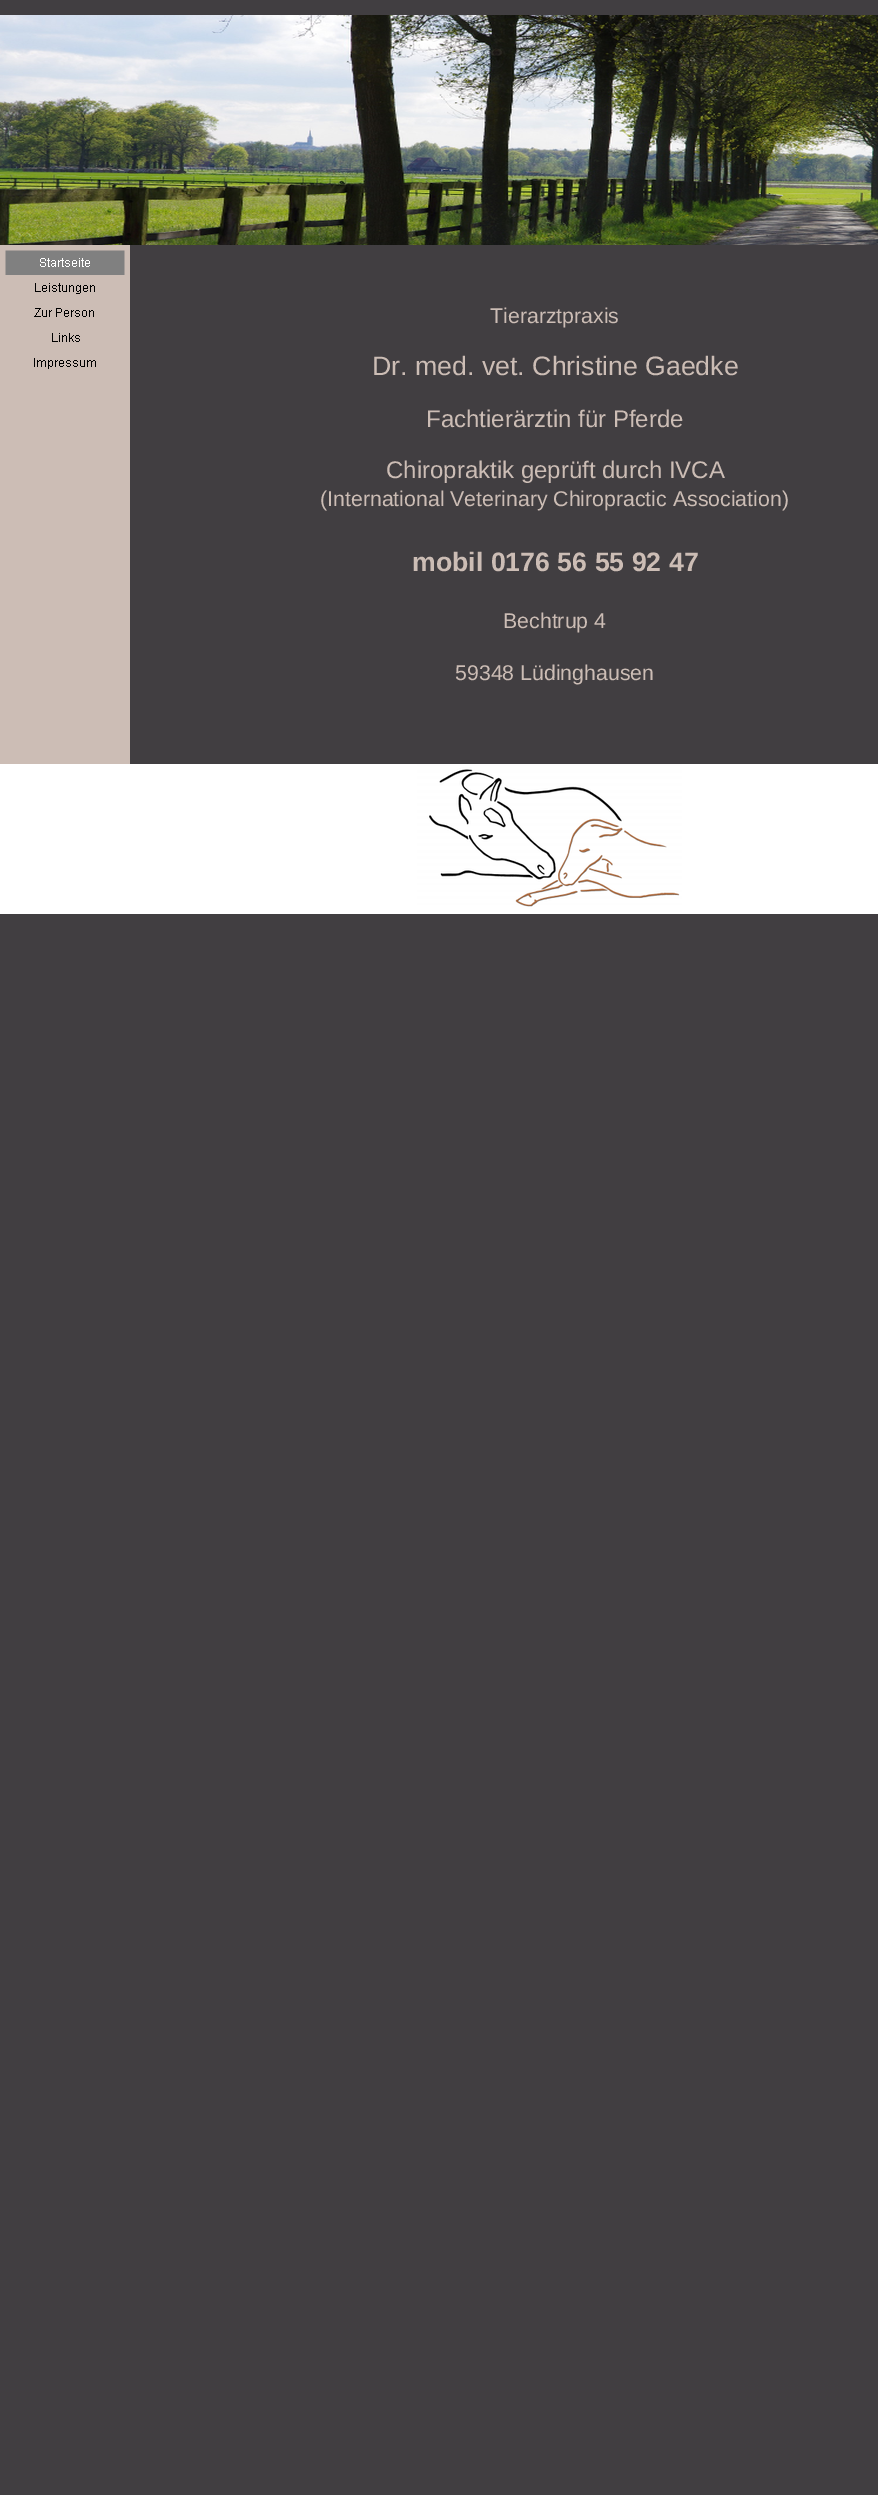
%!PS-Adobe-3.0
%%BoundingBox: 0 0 878 2495
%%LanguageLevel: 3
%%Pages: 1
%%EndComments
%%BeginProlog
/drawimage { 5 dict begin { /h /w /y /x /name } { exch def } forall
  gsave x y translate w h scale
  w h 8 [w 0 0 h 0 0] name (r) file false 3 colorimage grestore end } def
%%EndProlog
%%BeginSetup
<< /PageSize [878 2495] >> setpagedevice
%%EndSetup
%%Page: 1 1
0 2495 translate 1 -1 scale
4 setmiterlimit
0.255 0.243 0.255 setrgbcolor
0 0 878 2495 rectfill
(images/1.raw) 0 15 878 230 drawimage
0.8 0.741 0.71 setrgbcolor
0 245 130 519 rectfill
(images/2.raw) 5 250 120 25 drawimage
(images/3.raw) 35 283 60 11 drawimage
(images/4.raw) 34 308 60 9 drawimage
(images/5.raw) 52 333 28 9 drawimage
(images/6.raw) 34 358 62 11 drawimage
(images/7.raw) 0 764 878 150 drawimage
/LiberationSans-Regular [21.3 0 0 -21.3 0 0] selectfont
490 323 moveto (Tierarztpraxis) show
/LiberationSans-Regular [26.7 0 0 -26.7 0 0] selectfont
372 375 moveto (Dr. med. vet. Christine Gaedke) show
/LiberationSans-Regular [24 0 0 -24 0 0] selectfont
426 427 moveto (Fachtierärztin für Pferde) show
386 478 moveto (Chiropraktik geprüft durch IVCA) show
/LiberationSans-Regular [21.3 0 0 -21.3 0 0] selectfont
320 506 moveto (\(International Veterinary Chiropractic Association\)) show
/LiberationSans-Bold [26.7 0 0 -26.7 0 0] selectfont
412 571 moveto (mobil 0176 56 55 92 47) show
/LiberationSans-Regular [21.3 0 0 -21.3 0 0] selectfont
503 628 moveto (Bechtrup 4) show
455 680 moveto (59348 Lüdinghausen) show
showpage
%%EOF
